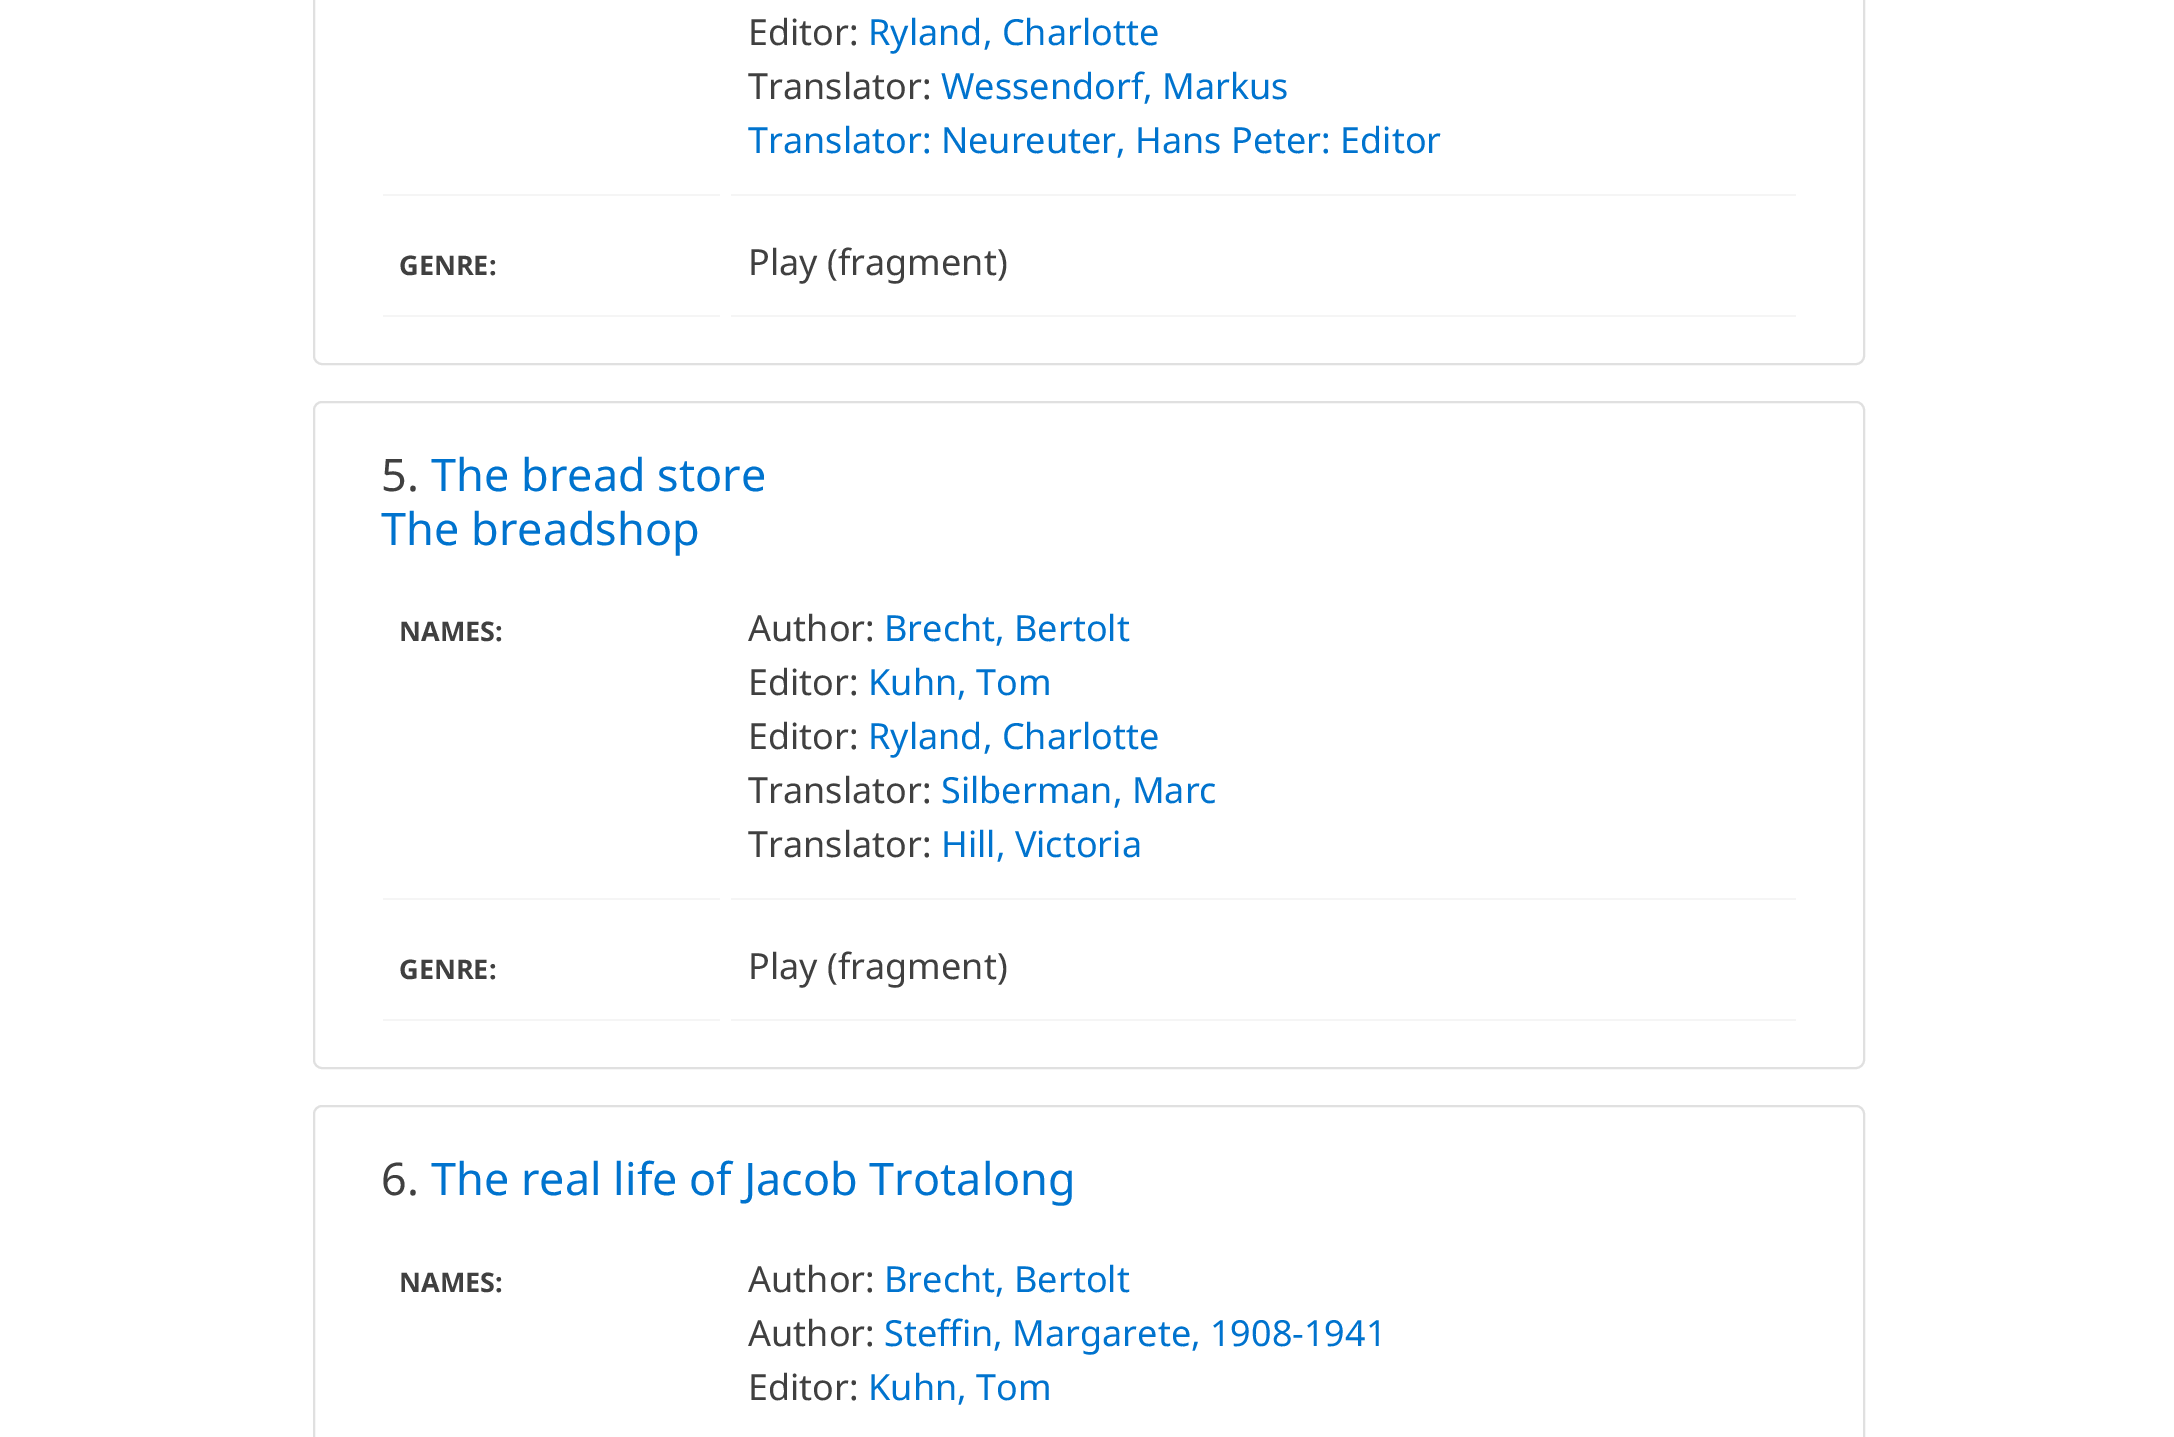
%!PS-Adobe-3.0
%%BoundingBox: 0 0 2174 1437
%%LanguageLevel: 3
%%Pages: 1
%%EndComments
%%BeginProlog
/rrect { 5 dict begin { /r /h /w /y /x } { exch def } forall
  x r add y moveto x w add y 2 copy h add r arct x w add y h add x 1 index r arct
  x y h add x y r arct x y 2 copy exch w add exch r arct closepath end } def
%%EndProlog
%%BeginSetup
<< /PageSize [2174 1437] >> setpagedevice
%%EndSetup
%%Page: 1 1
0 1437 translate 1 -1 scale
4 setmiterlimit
1 setgray
0 0 2174 1437 rectfill
0.878 setgray
2 setlinewidth
314 -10 1550 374 8 rrect stroke
0.961 setgray
731 194 1065 2 rectfill
383 194 337 2 rectfill
383 315 337 2 rectfill
731 315 1065 2 rectfill
0.878 setgray
314 402 1550 666 8 rrect stroke
0.961 setgray
383 898 337 2 rectfill
731 898 1065 2 rectfill
383 1019 337 2 rectfill
731 1019 1065 2 rectfill
0.878 setgray
314 1106 1550 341 8 rrect stroke
/NotoSans-Regular [36 0 0 -36 0 0] selectfont
0.251 setgray
748 45 moveto (Editor:) show
0 0.451 0.808 setrgbcolor
868 45 moveto (Ryland, Charlotte) show
0.251 setgray
748 99 moveto (Translator:) show
0 0.451 0.808 setrgbcolor
941 99 moveto (Wessendorf, Markus) show
748 153 moveto (Translator: Neureuter, Hans Peter: Editor) show
/NotoSans-Bold [27 0 0 -27 0 0] selectfont
0.251 setgray
399 275 moveto (GENRE:) show
/NotoSans-Regular [36 0 0 -36 0 0] selectfont
748 275 moveto (Play \(fragment\)) show
/NotoSans-Regular [45 0 0 -45 0 0] selectfont
381 491 moveto (5.) show
0 0.451 0.808 setrgbcolor
431 491 moveto (The bread store) show
381 545 moveto (The breadshop) show
/NotoSans-Bold [27 0 0 -27 0 0] selectfont
0.251 setgray
399 641 moveto (NAMES:) show
/NotoSans-Regular [36 0 0 -36 0 0] selectfont
748 641 moveto (Author:) show
0 0.451 0.808 setrgbcolor
884 641 moveto (Brecht, Bertolt) show
0.251 setgray
748 695 moveto (Editor:) show
0 0.451 0.808 setrgbcolor
868 695 moveto (Kuhn, Tom) show
0.251 setgray
748 749 moveto (Editor:) show
0 0.451 0.808 setrgbcolor
868 749 moveto (Ryland, Charlotte) show
0.251 setgray
748 803 moveto (Translator:) show
0 0.451 0.808 setrgbcolor
941 803 moveto (Silberman, Marc) show
0.251 setgray
748 857 moveto (Translator:) show
0 0.451 0.808 setrgbcolor
941 857 moveto (Hill, Victoria) show
/NotoSans-Bold [27 0 0 -27 0 0] selectfont
0.251 setgray
399 979 moveto (GENRE:) show
/NotoSans-Regular [36 0 0 -36 0 0] selectfont
748 979 moveto (Play \(fragment\)) show
/NotoSans-Regular [45 0 0 -45 0 0] selectfont
381 1195 moveto (6.) show
0 0.451 0.808 setrgbcolor
431 1195 moveto (The real life of Jacob Trotalong) show
/NotoSans-Bold [27 0 0 -27 0 0] selectfont
0.251 setgray
399 1292 moveto (NAMES:) show
/NotoSans-Regular [36 0 0 -36 0 0] selectfont
748 1292 moveto (Author:) show
0 0.451 0.808 setrgbcolor
884 1292 moveto (Brecht, Bertolt) show
0.251 setgray
748 1346 moveto (Author:) show
0 0.451 0.808 setrgbcolor
884 1346 moveto (Steffin, Margarete, 1908-1941) show
0.251 setgray
748 1400 moveto (Editor:) show
0 0.451 0.808 setrgbcolor
868 1400 moveto (Kuhn, Tom) show
showpage
%%EOF
